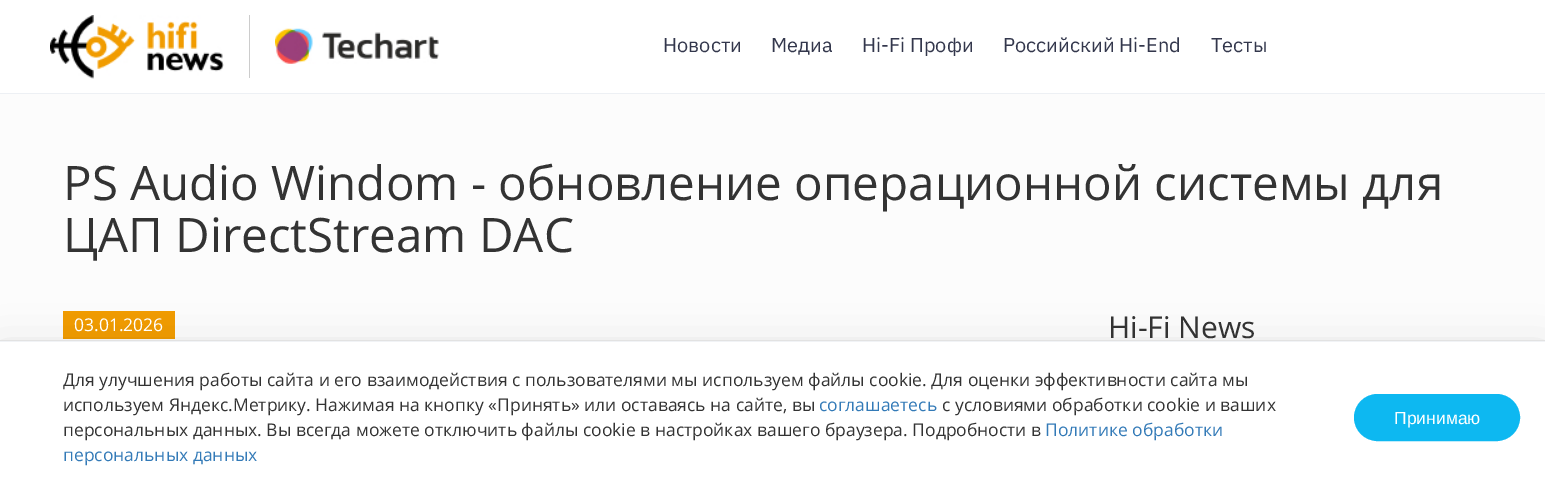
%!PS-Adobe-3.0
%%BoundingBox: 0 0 1545 492
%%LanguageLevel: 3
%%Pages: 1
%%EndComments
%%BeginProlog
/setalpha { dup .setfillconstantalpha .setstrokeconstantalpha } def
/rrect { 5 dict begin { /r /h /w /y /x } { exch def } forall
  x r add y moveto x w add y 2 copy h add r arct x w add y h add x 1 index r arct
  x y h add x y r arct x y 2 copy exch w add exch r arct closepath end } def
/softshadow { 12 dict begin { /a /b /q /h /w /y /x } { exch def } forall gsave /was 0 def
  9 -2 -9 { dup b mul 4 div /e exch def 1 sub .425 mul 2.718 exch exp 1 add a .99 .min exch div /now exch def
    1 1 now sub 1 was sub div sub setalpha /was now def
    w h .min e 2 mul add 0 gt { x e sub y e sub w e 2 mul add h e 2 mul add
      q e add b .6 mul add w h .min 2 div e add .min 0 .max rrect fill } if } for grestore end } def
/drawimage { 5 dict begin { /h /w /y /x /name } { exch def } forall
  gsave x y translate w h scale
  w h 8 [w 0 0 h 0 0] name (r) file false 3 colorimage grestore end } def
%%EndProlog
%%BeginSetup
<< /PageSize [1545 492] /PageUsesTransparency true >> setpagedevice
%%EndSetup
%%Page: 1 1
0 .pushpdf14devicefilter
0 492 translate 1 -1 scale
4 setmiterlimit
0.988 setgray
0 0 1545 492 rectfill
1 setgray
0 0 1545 93 rectfill
0.929 0.941 0.957 setrgbcolor
0 93 1545 1 rectfill
(images/1.raw) 50 15 174 64 drawimage
0.8 setgray
249 15 1 63 rectfill
(images/2.raw) 275 28 164 36 drawimage
0.945 0.612 0.004 setrgbcolor
63 311 112 28 rectfill
0.929 setgray
-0.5 340.5 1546 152 rectstroke
0 setgray
0 354 1545 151 0 22.5 0.16 softshadow
1 setgray
0 342 1545 150 rectfill
0.945 0.953 0.965 setrgbcolor
0 341 1545 1 rectfill
0.051 0.722 0.945 setrgbcolor
1355.5 395.5 163 44 22 rrect gsave fill grestore
3 setlinewidth
stroke
/IBMPlexSans-Regular [20 0 0 -20 0 0] selectfont
0.2 0.216 0.298 setrgbcolor
663 52 moveto (Новости) show
771 52 moveto (Медиа) show
862 52 moveto (Hi-Fi Профи) show
1003 52 moveto (Российский Hi-End) show
1211 52 moveto (Тесты) show
/OpenSans-Regular [47.5 0 0 -47.5 0 0] selectfont
0.2 setgray
63 200 moveto (PS Audio Windom - обновление операционной системы для) show
63 252 moveto (ЦАП DirectStream DAC) show
/OpenSans-Regular [17.5 0 0 -17.5 0 0] selectfont
1 setgray
74 331 moveto (03.01.2026) show
/OpenSans-Regular [30 0 0 -30 0 0] selectfont
0.2 setgray
1108 338 moveto (Hi-Fi News) show
/OpenSans-Regular [17.5 0 0 -17.5 0 0] selectfont
63 386 moveto (Для улучшения работы сайта и его взаимодействия с пользователями мы используем файлы cookie. Для оценки эффективности сайта мы) show
63 411 moveto (используем Яндекс.Метрику. Нажимая на кнопку «Принять» или оставаясь на сайте, вы) show
0.2 0.478 0.718 setrgbcolor
819 411 moveto (соглашаетесь) show
0.2 setgray
942 411 moveto (с условиями обработки cookie и ваших) show
63 436 moveto (персональных данных. Вы всегда можете отключить файлы cookie в настройках вашего браузера. Подробности в) show
0.2 0.478 0.718 setrgbcolor
1045 436 moveto (Политике обработки) show
63 461 moveto (персональных данных) show
/LiberationSans-Regular [17.5 0 0 -17.5 0 0] selectfont
1 setgray
1394 424 moveto (Принимаю) show
.poppdf14devicefilter showpage
%%EOF
